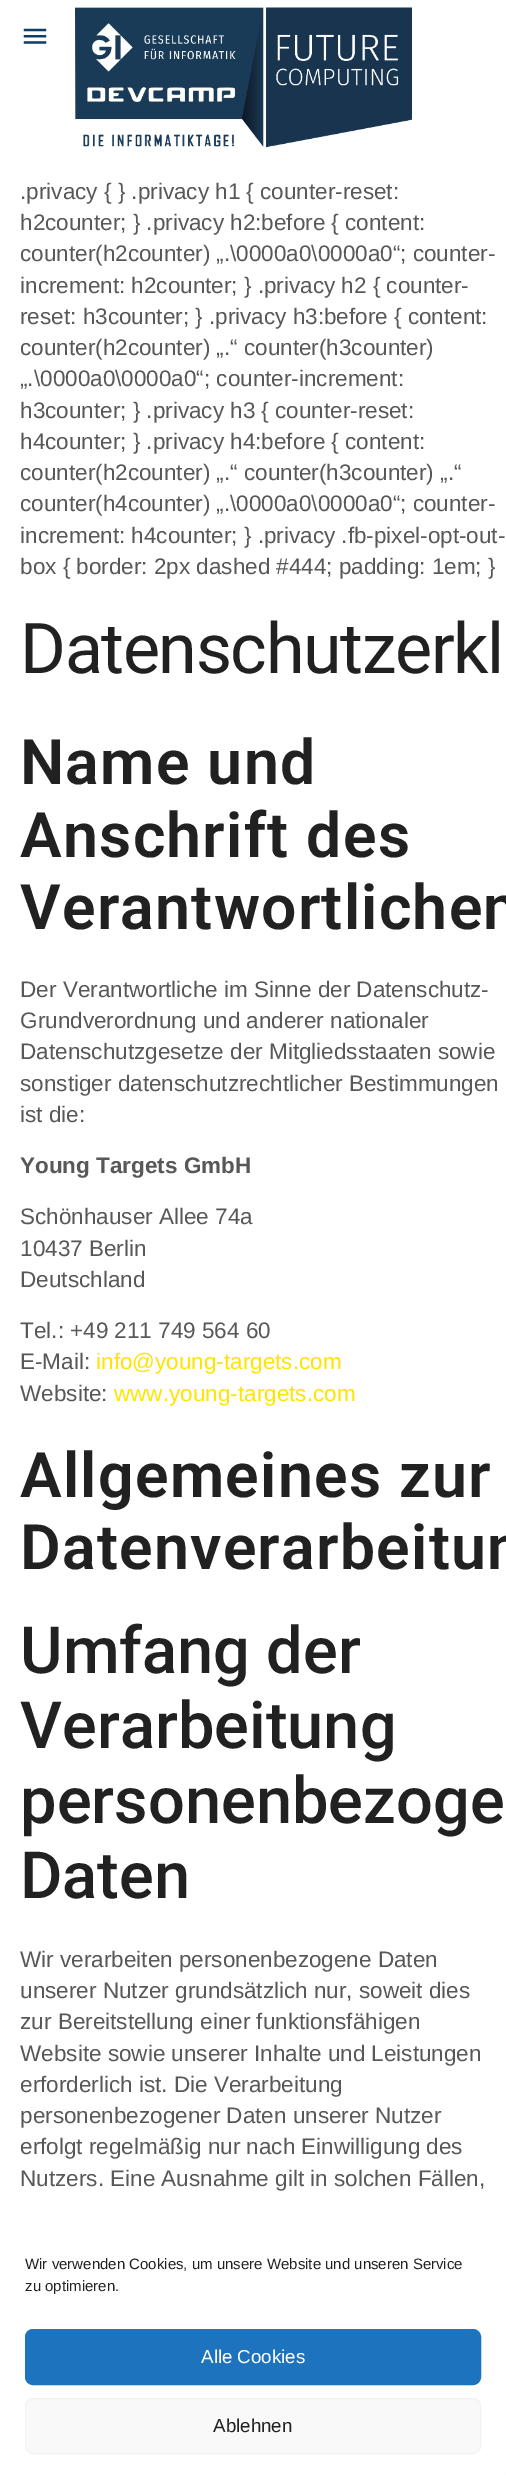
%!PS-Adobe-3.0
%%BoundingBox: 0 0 506 2484
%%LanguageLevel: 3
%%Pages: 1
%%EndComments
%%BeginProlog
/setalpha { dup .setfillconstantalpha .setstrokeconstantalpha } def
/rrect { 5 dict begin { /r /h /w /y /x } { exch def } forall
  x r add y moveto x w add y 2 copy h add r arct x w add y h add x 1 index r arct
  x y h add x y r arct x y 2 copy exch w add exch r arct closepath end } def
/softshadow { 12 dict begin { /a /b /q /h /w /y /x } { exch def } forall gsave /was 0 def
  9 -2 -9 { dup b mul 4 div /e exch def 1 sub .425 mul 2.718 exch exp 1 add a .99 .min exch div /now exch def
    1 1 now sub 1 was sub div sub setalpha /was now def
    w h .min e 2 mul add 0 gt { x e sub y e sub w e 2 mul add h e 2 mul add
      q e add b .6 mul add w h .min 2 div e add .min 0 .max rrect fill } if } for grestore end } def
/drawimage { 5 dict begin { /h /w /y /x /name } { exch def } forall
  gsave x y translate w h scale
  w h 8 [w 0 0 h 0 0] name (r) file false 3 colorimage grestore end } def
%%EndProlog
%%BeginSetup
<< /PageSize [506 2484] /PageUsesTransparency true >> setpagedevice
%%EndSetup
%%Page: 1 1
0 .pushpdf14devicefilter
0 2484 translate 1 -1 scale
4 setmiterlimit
1 setgray
0 0 506 2484 rectfill
(images/1.raw) 23 28 24 16 drawimage
(images/2.raw) 75 7 337 141 drawimage
0.502 setgray
419 2393 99 75 2.5 3 1 softshadow
1 setgray
0 2209 506 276 15 rrect fill
0.118 0.451 0.745 setrgbcolor
25.5 2329.5 455 55 7.5 rrect gsave fill grestore
stroke
0.976 setgray
25.5 2398.5 455 55 7.5 rrect gsave fill grestore
0.949 setgray
stroke
/LiberationSans-Regular [22.5 0 0 -22.5 0 0] selectfont
0.345 setgray
20 199 moveto (.privacy { } .privacy h1 { counter-reset:) show
20 230 moveto (h2counter; } .privacy h2:before { content:) show
20 261 moveto (counter\(h2counter\) „.\\0000a0\\0000a0“; counter-) show
20 293 moveto (increment: h2counter; } .privacy h2 { counter-) show
20 324 moveto (reset: h3counter; } .privacy h3:before { content:) show
20 355 moveto (counter\(h2counter\) „.“ counter\(h3counter\)) show
20 386 moveto („.\\0000a0\\0000a0“; counter-increment:) show
20 418 moveto (h3counter; } .privacy h3 { counter-reset:) show
20 449 moveto (h4counter; } .privacy h4:before { content:) show
20 480 moveto (counter\(h2counter\) „.“ counter\(h3counter\) „.“) show
20 511 moveto (counter\(h4counter\) „.\\0000a0\\0000a0“; counter-) show
20 543 moveto (increment: h4counter; } .privacy .fb-pixel-opt-out-) show
20 574 moveto (box { border: 2px dashed #444; padding: 1em; }) show
/Roboto-Regular [70 0 0 -70 0 0] selectfont
0.129 setgray
20 673 moveto -1.4 0 (Datenschutzerkl) ashow
/Roboto-SemiBold [62.5 0 0 -62.5 0 0] selectfont
20 784 moveto 1.25 0 (Name und) ashow
20 857 moveto 1.25 0 (Anschrift des) ashow
20 929 moveto 1.25 0 (Verantwortlichen) ashow
/LiberationSans-Regular [22.5 0 0 -22.5 0 0] selectfont
0.345 setgray
20 997 moveto (Der Verantwortliche im Sinne der Datenschutz-) show
20 1028 moveto (Grundverordnung und anderer nationaler) show
20 1059 moveto (Datenschutzgesetze der Mitgliedsstaaten sowie) show
20 1091 moveto (sonstiger datenschutzrechtlicher Bestimmungen) show
20 1122 moveto (ist die:) show
/LiberationSans-Bold [22.5 0 0 -22.5 0 0] selectfont
20 1173 moveto (Young Targets GmbH) show
/LiberationSans-Regular [22.5 0 0 -22.5 0 0] selectfont
20 1224 moveto (Schönhauser Allee 74a) show
20 1256 moveto (10437 Berlin) show
20 1287 moveto (Deutschland) show
20 1338 moveto (Tel.: +49 211 749 564 60) show
20 1369 moveto (E-Mail:) show
1 0.894 0 setrgbcolor
96 1369 moveto (info@young-targets.com) show
0.345 setgray
20 1401 moveto (Website:) show
1 0.894 0 setrgbcolor
114 1401 moveto (www.young-targets.com) show
/Roboto-SemiBold [62.5 0 0 -62.5 0 0] selectfont
0.129 setgray
20 1497 moveto 1.25 0 (Allgemeines zur) ashow
20 1569 moveto 1.25 0 (Datenverarbeitun) ashow
/Roboto-Medium [65 0 0 -65 0 0] selectfont
20 1673 moveto (Umfang der) show
20 1748 moveto (Verarbeitung) show
20 1823 moveto (personenbezoge) show
20 1898 moveto (Daten) show
/LiberationSans-Regular [22.5 0 0 -22.5 0 0] selectfont
0.345 setgray
20 1967 moveto (Wir verarbeiten personenbezogene Daten) show
20 1998 moveto (unserer Nutzer grundsätzlich nur, soweit dies) show
20 2029 moveto (zur Bereitstellung einer funktionsfähigen) show
20 2061 moveto (Website sowie unserer Inhalte und Leistungen) show
20 2092 moveto (erforderlich ist. Die Verarbeitung) show
20 2123 moveto (personenbezogener Daten unserer Nutzer) show
20 2154 moveto (erfolgt regelmäßig nur nach Einwilligung des) show
20 2186 moveto (Nutzers. Eine Ausnahme gilt in solchen Fällen,) show
/LiberationSans-Regular [15 0 0 -15 0 0] selectfont
0.129 setgray
25 2269 moveto (Wir verwenden Cookies, um unsere Website und unseren Service) show
25 2291 moveto (zu optimieren.) show
/LiberationSans-Regular [18.75 0 0 -18.75 0 0] selectfont
1 setgray
201 2363 moveto (Alle Cookies) show
0.129 setgray
213 2432 moveto (Ablehnen) show
.poppdf14devicefilter showpage
%%EOF
